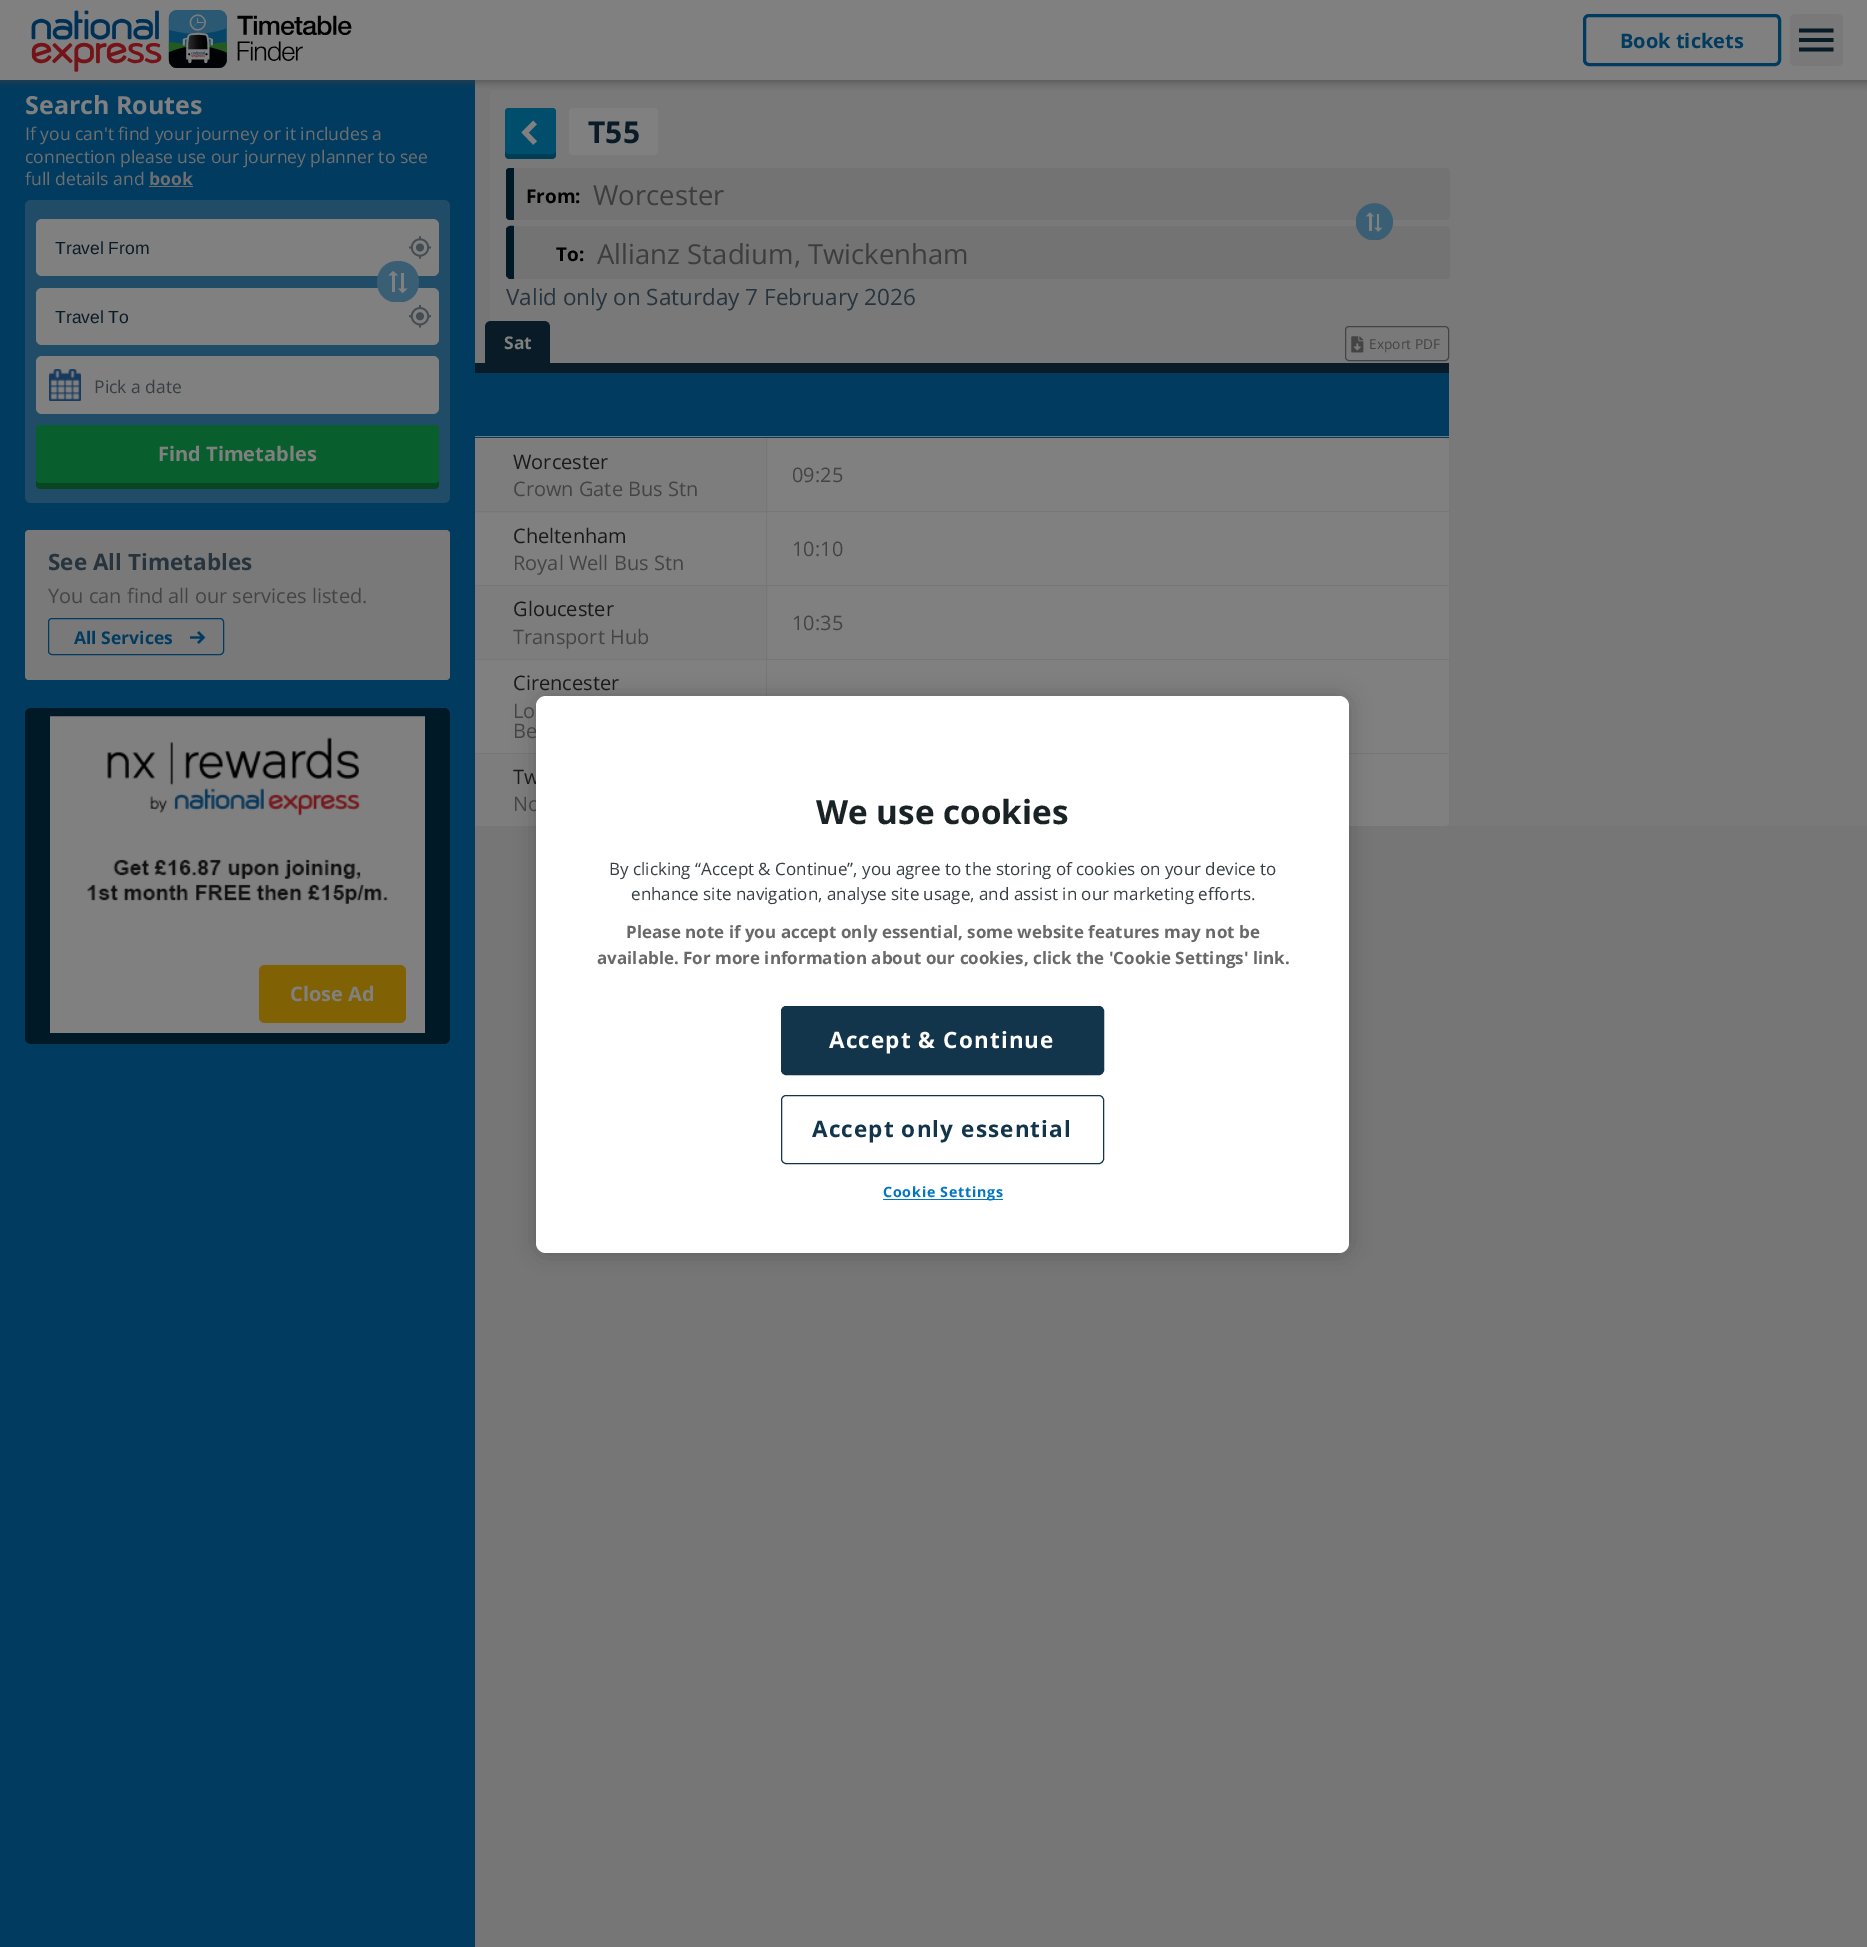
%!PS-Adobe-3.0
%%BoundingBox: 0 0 1867 1947
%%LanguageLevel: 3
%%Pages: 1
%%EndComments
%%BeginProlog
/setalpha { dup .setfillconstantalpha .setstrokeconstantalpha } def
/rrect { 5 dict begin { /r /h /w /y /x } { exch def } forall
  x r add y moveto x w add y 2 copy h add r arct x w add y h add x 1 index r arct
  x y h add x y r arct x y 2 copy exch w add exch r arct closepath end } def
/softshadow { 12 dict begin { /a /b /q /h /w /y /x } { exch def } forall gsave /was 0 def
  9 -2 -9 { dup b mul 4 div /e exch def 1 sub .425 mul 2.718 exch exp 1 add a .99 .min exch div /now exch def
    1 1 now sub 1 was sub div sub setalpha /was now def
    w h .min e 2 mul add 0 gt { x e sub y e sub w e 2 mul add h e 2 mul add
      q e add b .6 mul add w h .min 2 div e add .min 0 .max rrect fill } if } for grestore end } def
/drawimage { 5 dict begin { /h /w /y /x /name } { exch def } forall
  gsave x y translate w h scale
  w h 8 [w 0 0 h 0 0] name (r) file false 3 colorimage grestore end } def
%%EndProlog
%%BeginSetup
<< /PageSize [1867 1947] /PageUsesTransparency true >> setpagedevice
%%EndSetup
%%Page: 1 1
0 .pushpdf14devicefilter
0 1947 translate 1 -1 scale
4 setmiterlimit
0.502 setgray
0 0 1867 1947 rectfill
0.004 0.231 0.376 setrgbcolor
0 80 475 1867 rectfill
0.463 setgray
475 80 1392 1867 rectfill
gsave
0 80 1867 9 rectclip
0.255 setgray
1 1 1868 80 0 4 0.8 softshadow
grestore
(images/1.raw) 31 10 321 62 drawimage
0.004 0.231 0.376 setrgbcolor
3 setlinewidth
1584.5 15.5 195 49 4.5 rrect stroke
0.475 setgray
1790 14 53 52 5 rrect fill
0.035 0.106 0.149 setrgbcolor
newpath 1799 28.5 moveto 1833.5 28.5 lineto 1833.5 32.5 lineto 1799 32.5 lineto 1799 28.5 lineto 1799 38 moveto 1833.5 38 lineto 1833.5 42 lineto 1799 42 lineto 1799 38 lineto 1799 47.5 moveto 1833.5 47.5 lineto 1833.5 51.5 lineto 1799 51.5 lineto closepath fill
0.435 setgray
149 186 44 1 rectfill
0.129 0.298 0.408 setrgbcolor
25 200 425 303 6 rrect fill
0.502 setgray
36 219 403 57 6 rrect fill
(images/2.raw) 409 236 22 23 drawimage
36 288 403 57 6 rrect fill
0.227 0.373 0.459 setrgbcolor
newpath 393 302 moveto 370 298 372 261 398 261 curveto 424 261 426 298 403 302 curveto closepath fill
0.502 setgray
392 274 3 18 rectfill
newpath 398 275.5 moveto 388.5 275.5 lineto 393 271 lineto closepath fill
401 273 3 17 rectfill
newpath 398 288.5 moveto 407.5 288.5 lineto 402.5 293 lineto closepath fill
(images/3.raw) 409 305 22 23 drawimage
36 356 403 58 6 rrect fill
(images/4.raw) 49 369 32 32 drawimage
0.027 0.275 0.129 setrgbcolor
newpath 36 434 moveto 36 485 lineto 36 487 38 489 40 489 curveto 435 489 lineto 437 489 439 487 439 485 curveto 439 434 lineto 439 479 lineto 439 481 437 482 435 482 curveto 40 482 lineto 38 482 36 481 36 479 curveto closepath fill
0.031 0.373 0.176 setrgbcolor
36 425 403 58 4 rrect fill
0.475 setgray
25 530 425 150 4 rrect fill
0.004 0.231 0.376 setrgbcolor
1 setlinewidth
48.5 618.5 175 36 3.5 rrect stroke
2.3 setlinewidth
newpath 198 632 moveto 203.5 637.5 lineto 198 643 lineto 190 637.5 moveto 203 637.5 lineto stroke
0 0.098 0.153 setrgbcolor
25 708 425 336 6 rrect fill
(images/5.raw) 50 716 375 249 drawimage
0.502 setgray
50 965 375 68 rectfill
0.502 0.38 0.016 setrgbcolor
259 965 147 58 6 rrect fill
0.475 setgray
490 90 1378 274 4 rrect fill
0 0.243 0.333 setrgbcolor
505 108 51 51 4 rrect fill
0 0.306 0.42 setrgbcolor
505 108 51 46 4 rrect fill
0.502 setgray
5 setlinewidth
newpath 535 143 moveto 525 132.5 lineto 535 122.5 lineto stroke
569 108 89 47 4 rrect fill
0.451 setgray
506 168 944 52 4 rrect fill
0 0.098 0.153 setrgbcolor
newpath 510 168 moveto 508 168 507 169 506 170 curveto 506 217 lineto 507 219 508 220 510 220 curveto 514 220 lineto 514 168 lineto closepath fill
0.451 setgray
506 226 944 53 4 rrect fill
(images/6.raw) 1355 203 38 37 drawimage
0 0.098 0.153 setrgbcolor
newpath 506 229 moveto 508 225 511 226 514 226 curveto 514 279 lineto 509 279 lineto 508 278 507 277 506 276 curveto closepath fill
0.475 setgray
490 363 1377 463 rectfill
0.035 0.106 0.149 setrgbcolor
475 363 974 10 rectfill
newpath 491 321 moveto 544 321 lineto 547.5 321 550 323.5 550 327 curveto 550 363 lineto 485 363 lineto 485 327 lineto 485 323.5 487.5 321 491 321 curveto closepath fill
0.267 setgray
1 setlinewidth
1345.5 326.5 103 34 3.5 rrect stroke
(images/7.raw) 1351 336 13 17 drawimage
0.004 0.231 0.376 setrgbcolor
475 373 974 65 rectfill
0.467 setgray
475 436 974 1 rectfill
0.502 setgray
475 438 975 388 8 rrect fill
0.49 setgray
475 439 293 74 rectfill
0.502 setgray
475 438 6 1 rectfill
0.49 setgray
475 586 293 73 rectfill
0.467 setgray
766 659 1 37 rectfill
1449 438 1 388 rectfill
766 659 684 1 rectfill
766 585 1 75 rectfill
766 585 684 1 rectfill
766 511 1 75 rectfill
766 511 684 1 rectfill
766 438 1 75 rectfill
475 511 293 1 rectfill
0.494 setgray
1447 439 2 2 rectfill
0.467 setgray
475 585 293 1 rectfill
475 659 293 1 rectfill
475 753 61 1 rectfill
1349 753 101 1 rectfill
0.49 setgray
475 754 61 72 rectfill
0.494 setgray
1445 823 4 3 rectfill
0 setgray
536 696 813 557 10 11 0.2 softshadow
/OpenSans-Bold [20 0 0 -20 0 0] selectfont
0.004 0.231 0.376 setrgbcolor
1620 48 moveto (Book tickets) show
/OpenSans-Bold [25 0 0 -25 0 0] selectfont
0.502 setgray
25 114 moveto (Search Routes) show
/OpenSans-Regular [17.5 0 0 -17.5 0 0] selectfont
0.435 setgray
25 140 moveto (If you can't find your journey or it includes a) show
25 163 moveto (connection please use our journey planner to see) show
25 185 moveto (full details and) show
/OpenSans-Bold [17.5 0 0 -17.5 0 0] selectfont
149 185 moveto (book) show
/LiberationSans-Regular [17.5 0 0 -17.5 0 0] selectfont
0.035 0.106 0.149 setrgbcolor
55 254 moveto (Travel From) show
55 323 moveto (Travel To) show
/OpenSans-Regular [17.5 0 0 -17.5 0 0] selectfont
0.216 0.247 0.263 setrgbcolor
94 393 moveto (Pick a date) show
/OpenSans-Bold [20 0 0 -20 0 0] selectfont
0.502 setgray
158 461 moveto (Find Timetables) show
/OpenSans-Bold [22.5 0 0 -22.5 0 0] selectfont
0.153 0.204 0.239 setrgbcolor
48 570 moveto (See All Timetables) show
/OpenSans-Regular [20 0 0 -20 0 0] selectfont
0.267 setgray
48 603 moveto (You can find all our services listed.) show
/OpenSans-Bold [17.5 0 0 -17.5 0 0] selectfont
0.004 0.231 0.376 setrgbcolor
74 644 moveto (All Services) show
/OpenSans-Bold [20 0 0 -20 0 0] selectfont
0.502 setgray
290 1001 moveto (Close Ad) show
/OpenSans-Bold [30 0 0 -30 0 0] selectfont
0.035 0.106 0.149 setrgbcolor
588 143 moveto (T55) show
/OpenSans-Bold [19 0 0 -19 0 0] selectfont
0 setgray
526 203 moveto (From:) show
/OpenSans-Regular [27.5 0 0 -27.5 0 0] selectfont
0.239 setgray
593 205 moveto (Worcester) show
/OpenSans-Bold [19 0 0 -19 0 0] selectfont
0 setgray
556 261 moveto (To:) show
/OpenSans-Regular [27.5 0 0 -27.5 0 0] selectfont
0.239 setgray
597 264 moveto (Allianz Stadium, Twickenham) show
/OpenSans-Regular [22.5 0 0 -22.5 0 0] selectfont
0.153 0.204 0.239 setrgbcolor
506 305 moveto (Valid only on Saturday 7 February 2026) show
/OpenSans-Bold [17.5 0 0 -17.5 0 0] selectfont
0.502 setgray
504 349 moveto (Sat) show
/OpenSans-Regular [13.75 0 0 -13.75 0 0] selectfont
0.267 setgray
1369 349 moveto (Export PDF) show
/OpenSans-Regular [20 0 0 -20 0 0] selectfont
0.102 setgray
513 469 moveto (Worcester) show
0.267 setgray
513 496 moveto (Crown Gate Bus Stn) show
792 482 moveto (09:25) show
0.102 setgray
513 543 moveto (Cheltenham) show
0.267 setgray
513 570 moveto (Royal Well Bus Stn) show
792 556 moveto (10:10) show
0.102 setgray
513 616 moveto (Gloucester) show
0.267 setgray
513 644 moveto (Transport Hub) show
792 630 moveto (10:35) show
0.102 setgray
513 690 moveto (Cirencester) show
0.267 setgray
513 718 moveto (Lo) show
513 738 moveto (Be) show
0.102 setgray
513 784 moveto (Tw) show
0.267 setgray
513 811 moveto (No) show
1 setgray
536 696 813 557 10 rrect fill
/OpenSans-Bold [33.25 0 0 -33.25 0 0] selectfont
0.098 0.137 0.145 setrgbcolor
816 824 moveto (We use cookies) show
/OpenSans-Regular [17 0 0 -17 0 0] selectfont
0.216 0.247 0.263 setrgbcolor
609 875 moveto (By clicking “Accept & Continue”, you agree to the storing of cookies on your device to) show
631 900 moveto (enhance site navigation, analyse site usage, and assist in our marketing efforts.) show
/OpenSans-Bold [17 0 0 -17 0 0] selectfont
0.412 setgray
626 938 moveto (Please note if you accept only essential, some website features may not be) show
597 964 moveto (available. For more information about our cookies, click the 'Cookie Settings' link.) show
0.071 0.208 0.298 setrgbcolor
781.5 1006.5 322 68 4.5 rrect gsave fill grestore
stroke
/OpenSans-Bold [22.5 0 0 -22.5 0 0] selectfont
1 setgray
829 1048 moveto 1.1 0 (Accept & Continue) ashow
0.071 0.208 0.298 setrgbcolor
781.5 1095.5 322 68 4.5 rrect stroke
812 1137 moveto 1.1 0 (Accept only essential) ashow
0 0.459 0.757 setrgbcolor
883 1199 120 1 rectfill
/OpenSans-Bold [14.25 0 0 -14.25 0 0] selectfont
883 1197 moveto 0.75 0 (Cookie Settings) ashow
.poppdf14devicefilter showpage
%%EOF
